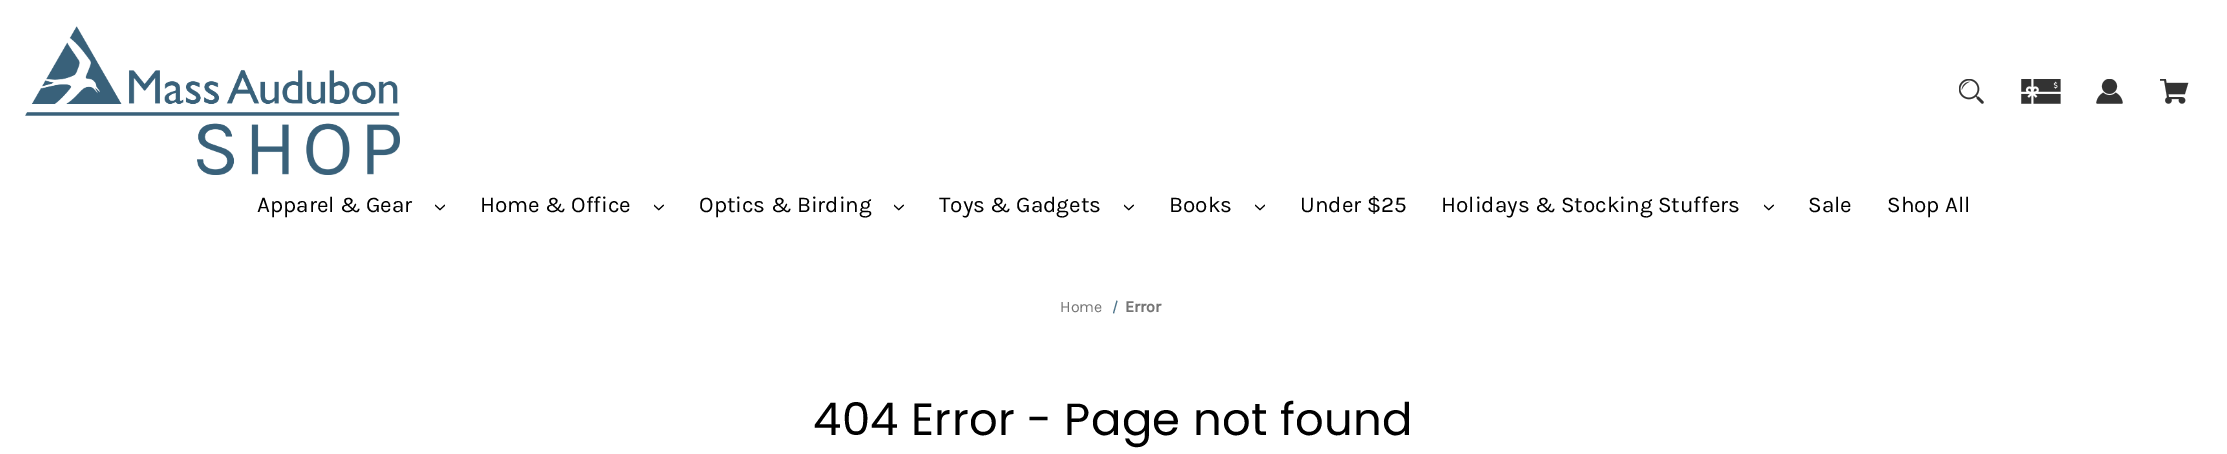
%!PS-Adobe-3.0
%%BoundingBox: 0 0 2227 454
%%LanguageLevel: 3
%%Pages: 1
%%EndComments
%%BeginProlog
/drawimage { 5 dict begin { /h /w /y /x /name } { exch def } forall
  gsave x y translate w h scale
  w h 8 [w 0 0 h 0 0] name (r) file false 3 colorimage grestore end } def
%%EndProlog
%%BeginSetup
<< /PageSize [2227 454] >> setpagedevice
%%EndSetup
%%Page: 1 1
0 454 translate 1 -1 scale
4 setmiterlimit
1 setgray
0 0 2227 454 rectfill
(images/1.raw) 25 26 375 149 drawimage
(images/2.raw) 1959 79 25 25 drawimage
(images/3.raw) 2021 79 40 25 drawimage
(images/4.raw) 2096 79 27 25 drawimage
(images/5.raw) 2160 79 29 25 drawimage
(images/6.raw) 435 204 10 7 drawimage
(images/7.raw) 654 204 10 7 drawimage
(images/7.raw) 894 204 10 7 drawimage
(images/7.raw) 1124 204 10 7 drawimage
(images/6.raw) 1255 204 10 7 drawimage
(images/7.raw) 1764 204 10 7 drawimage
0.31 0.459 0.545 setrgbcolor
newpath 1116.5 300.5 moveto 1117.5 301 lineto 1114 313.5 lineto 1113 313 lineto closepath fill
/Karla-Regular [22.5 0 0 -22.5 0 0] selectfont
0 setgray
257 212 moveto (Apparel & Gear) show
480 212 moveto (Home & Office) show
699 212 moveto (Optics & Birding) show
939 212 moveto (Toys & Gadgets) show
1169 212 moveto (Books) show
1300 212 moveto (Under $25) show
1441 212 moveto (Holidays & Stocking Stuffers) show
1808 212 moveto (Sale) show
1887 212 moveto (Shop All) show
/Karla-Regular [16 0 0 -16 0 0] selectfont
0.459 setgray
1060 312 moveto (Home) show
/Karla-Bold [16 0 0 -16 0 0] selectfont
1125 312 moveto (Error) show
/Poppins-Regular [45 0 0 -45 0 0] selectfont
0 setgray
813 435 moveto 0.3 0 (404 Error - Page not found) ashow
showpage
%%EOF
